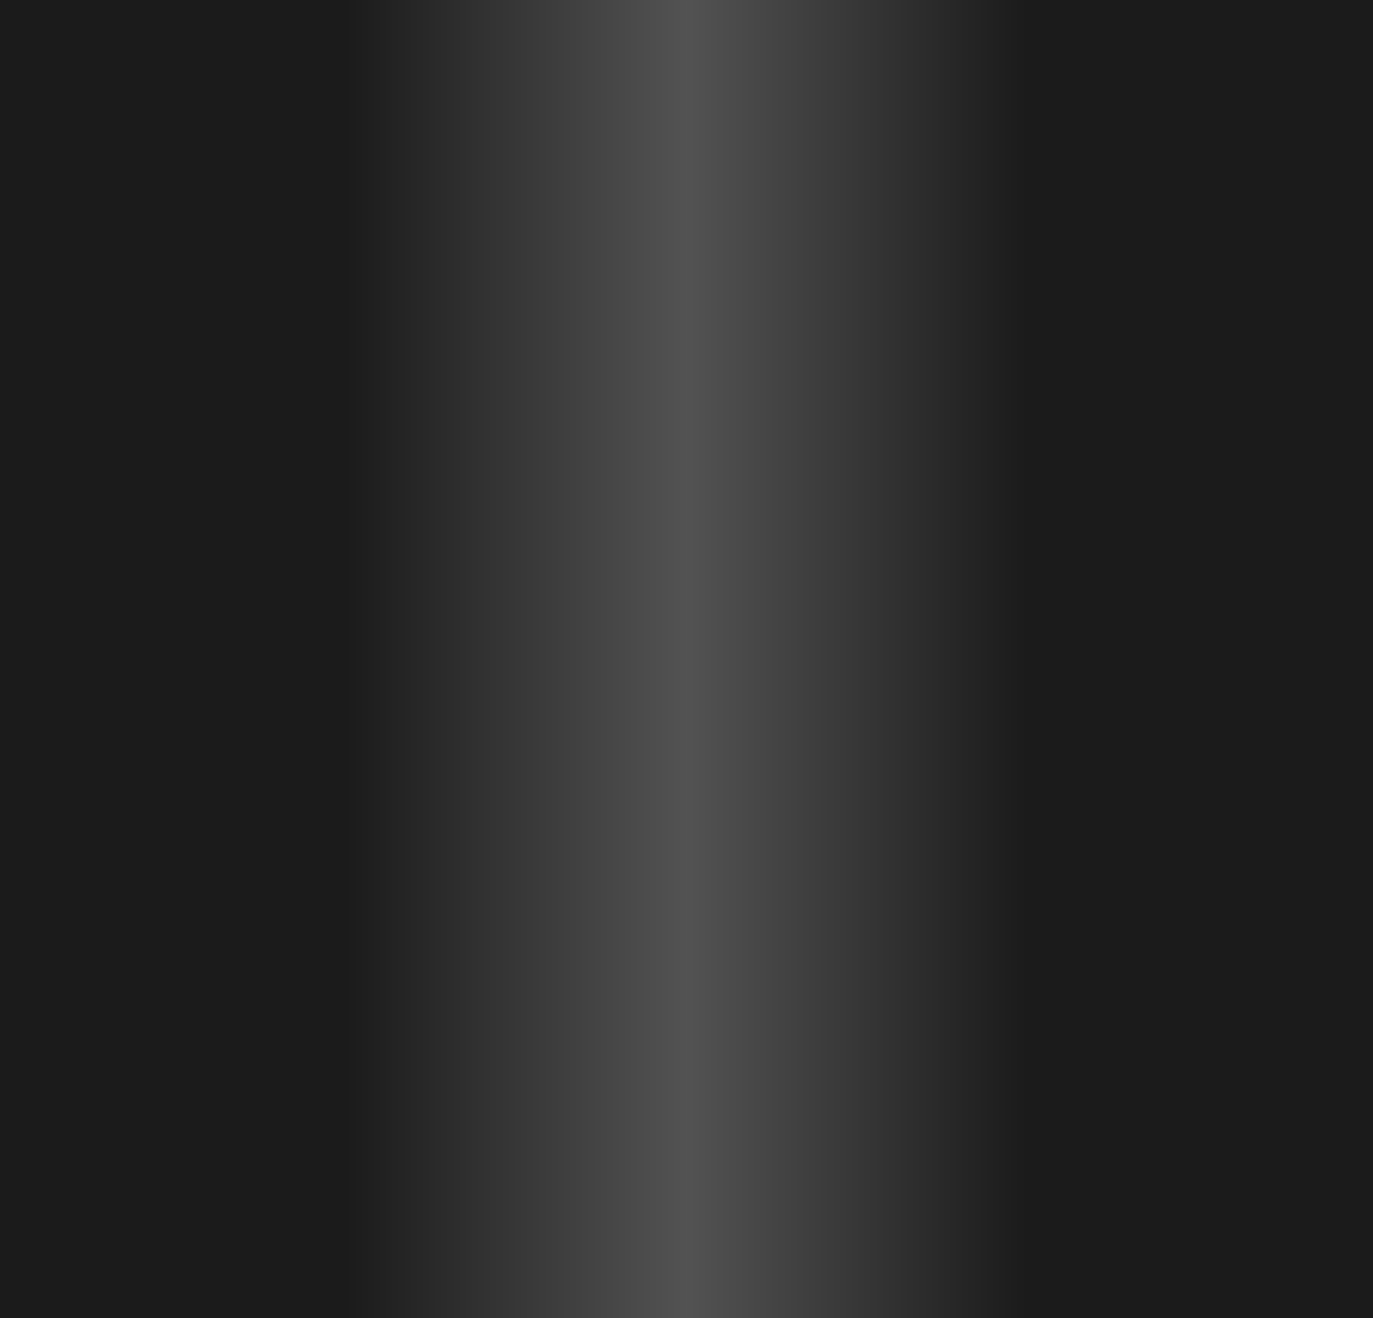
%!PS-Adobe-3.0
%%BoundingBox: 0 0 1373 1318
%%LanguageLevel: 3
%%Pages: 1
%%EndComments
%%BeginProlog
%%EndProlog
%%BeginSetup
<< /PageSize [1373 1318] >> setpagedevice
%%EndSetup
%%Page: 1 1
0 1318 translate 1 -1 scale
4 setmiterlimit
1 setgray
0 0 1373 1318 rectfill
gsave newpath 0 0 moveto 1373 0 lineto 1373 1318 lineto 0 1318 lineto closepath clip newpath
<< /ShadingType 2 /ColorSpace /DeviceRGB /Coords [0 659 1373 659] /Extend [true true] /Function << /FunctionType 3 /Domain [0 1] /Functions [<< /FunctionType 2 /Domain [0 1] /C0 [0.106 0.106 0.106] /C1 [0.106 0.106 0.106] /N 1 >> << /FunctionType 2 /Domain [0 1] /C0 [0.106 0.106 0.106] /C1 [0.325 0.325 0.325] /N 1 >> << /FunctionType 2 /Domain [0 1] /C0 [0.325 0.325 0.325] /C1 [0.106 0.106 0.106] /N 1 >> << /FunctionType 2 /Domain [0 1] /C0 [0.106 0.106 0.106] /C1 [0.106 0.106 0.106] /N 1 >>] /Bounds [0.25 0.5 0.75] /Encode [0 1 0 1 0 1 0 1] >> >> shfill grestore
showpage
%%EOF
